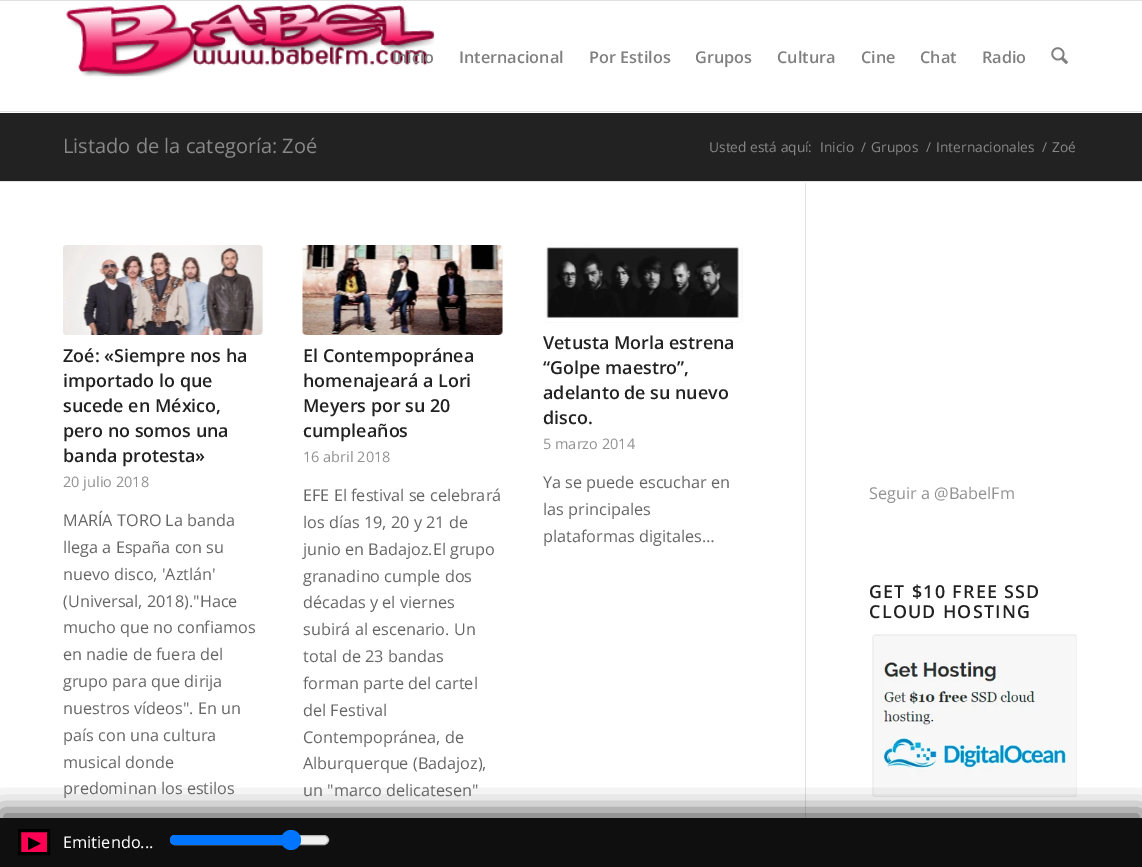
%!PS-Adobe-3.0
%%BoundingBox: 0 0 1142 867
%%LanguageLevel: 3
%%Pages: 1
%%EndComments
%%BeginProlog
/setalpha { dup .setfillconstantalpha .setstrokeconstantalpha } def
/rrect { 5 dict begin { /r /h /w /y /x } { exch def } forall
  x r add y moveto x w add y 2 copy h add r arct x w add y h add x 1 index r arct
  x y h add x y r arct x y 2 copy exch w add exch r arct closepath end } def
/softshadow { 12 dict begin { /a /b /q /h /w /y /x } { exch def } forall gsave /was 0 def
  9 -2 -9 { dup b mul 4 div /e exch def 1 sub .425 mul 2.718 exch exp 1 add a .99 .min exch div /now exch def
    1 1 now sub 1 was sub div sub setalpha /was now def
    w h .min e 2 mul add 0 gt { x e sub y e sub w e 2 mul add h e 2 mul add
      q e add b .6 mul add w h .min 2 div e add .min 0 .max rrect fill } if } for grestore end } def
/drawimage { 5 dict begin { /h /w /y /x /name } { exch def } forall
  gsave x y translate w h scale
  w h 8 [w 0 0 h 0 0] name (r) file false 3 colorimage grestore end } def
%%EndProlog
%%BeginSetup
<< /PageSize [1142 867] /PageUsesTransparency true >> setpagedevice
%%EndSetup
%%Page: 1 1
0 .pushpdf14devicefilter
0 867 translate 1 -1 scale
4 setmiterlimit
1 setgray
0 0 1142 867 rectfill
0.882 setgray
0 0 1142 1 rectfill
0 111 1142 1 rectfill
(images/1.raw) 66 3 369 74 drawimage
(images/2.raw) 1051 47 17 17 drawimage
0.133 setgray
0 113 1142 68 rectfill
0.882 setgray
0 181 1142 1 rectfill
805 183 1 684 rectfill
0.973 setgray
63 245 200 90 4 rrect fill
(images/3.raw) 63 245 200 90 drawimage
303 245 200 90 4 rrect fill
(images/4.raw) 302 245 201 90 drawimage
544 245 199 78 4 rrect fill
(images/5.raw) 544 245 198 77 drawimage
(images/6.raw) 872 634 205 163 drawimage
gsave
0 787 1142 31 rectclip
0 setgray
0 810 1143 50 0 12.5 0.6 softshadow
grestore
0.96 setalpha
0.02 setgray
0 818 1142 49 rectfill
1 setalpha
1 0 0.333 setrgbcolor
newpath 19.5 830.5 moveto 48.5 830.5 lineto 48.5 853.5 lineto 19.5 853.5 lineto closepath gsave fill grestore
0 setgray
3 setlinewidth
stroke
0.937 setgray
170.5 835.5 158 9 4.5 rrect gsave fill grestore
0.698 setgray
1 setlinewidth
stroke
0 0.459 1 setrgbcolor
newpath 175 835 moveto 291 835 lineto 291 845 lineto 175 845 lineto 172 845 170 843 170 840 curveto 170 837 172 835 175 835 curveto closepath fill
newpath 291 840 10 0 360 arc closepath fill
/OpenSans-SemiBold [16.25 0 0 -16.25 0 0] selectfont
0.502 setgray
392 63 moveto (Inicio) show
459 63 moveto (Internacional) show
589 63 moveto (Por Estilos) show
695 63 moveto (Grupos) show
777 63 moveto (Cultura) show
861 63 moveto (Cine) show
920 63 moveto (Chat) show
982 63 moveto (Radio) show
/OpenSans-Regular [20 0 0 -20 0 0] selectfont
0.533 setgray
63 153 moveto (Listado de la categoría: Zoé) show
/OpenSans-Regular [13.75 0 0 -13.75 0 0] selectfont
709 152 moveto (Usted está aquí:) show
820 152 moveto (Inicio) show
861 152 moveto (/) show
871 152 moveto (Grupos) show
926 152 moveto (/) show
936 152 moveto (Internacionales) show
1042 152 moveto (/) show
1052 152 moveto (Zoé) show
/OpenSans-SemiBold [17.9 0 0 -17.9 0 0] selectfont
0.133 setgray
63 362 moveto (Zoé: «Siempre nos ha) show
63 387 moveto (importado lo que) show
63 412 moveto (sucede en México,) show
63 437 moveto (pero no somos una) show
63 462 moveto (banda protesta») show
/OpenSans-Regular [14.5 0 0 -14.5 0 0] selectfont
0.569 setgray
63 487 moveto (20 julio 2018) show
/OpenSans-Regular [16.25 0 0 -16.25 0 0] selectfont
0.4 setgray
63 526 moveto (MARÍA TORO La banda) show
63 553 moveto (llega a España con su) show
63 580 moveto (nuevo disco, 'Aztlán') show
63 607 moveto (\(Universal, 2018\)."Hace) show
63 633 moveto (mucho que no confiamos) show
63 660 moveto (en nadie de fuera del) show
63 687 moveto (grupo para que dirija) show
63 714 moveto (nuestros vídeos". En un) show
63 741 moveto (país con una cultura) show
63 768 moveto (musical donde) show
63 794 moveto (predominan los estilos) show
/OpenSans-SemiBold [17.9 0 0 -17.9 0 0] selectfont
0.133 setgray
303 362 moveto (El Contempopránea) show
303 387 moveto (homenajeará a Lori) show
303 412 moveto (Meyers por su 20) show
303 437 moveto (cumpleaños) show
/OpenSans-Regular [14.5 0 0 -14.5 0 0] selectfont
0.569 setgray
303 462 moveto (16 abril 2018) show
/OpenSans-Regular [16.25 0 0 -16.25 0 0] selectfont
0.4 setgray
303 501 moveto (EFE El festival se celebrará) show
303 528 moveto (los días 19, 20 y 21 de) show
303 555 moveto (junio en Badajoz.El grupo) show
303 582 moveto (granadino cumple dos) show
303 608 moveto (décadas y el viernes) show
303 635 moveto (subirá al escenario. Un) show
303 662 moveto (total de 23 bandas) show
303 689 moveto (forman parte del cartel) show
303 716 moveto (del Festival) show
303 743 moveto (Contempopránea, de) show
303 769 moveto (Alburquerque \(Badajoz\),) show
303 796 moveto (un "marco delicatesen") show
/OpenSans-SemiBold [17.9 0 0 -17.9 0 0] selectfont
0.133 setgray
543 349 moveto (Vetusta Morla estrena) show
543 374 moveto (“Golpe maestro”,) show
543 399 moveto (adelanto de su nuevo) show
543 424 moveto (disco.) show
/OpenSans-Regular [14.5 0 0 -14.5 0 0] selectfont
0.569 setgray
543 449 moveto (5 marzo 2014) show
/OpenSans-Regular [16.25 0 0 -16.25 0 0] selectfont
0.4 setgray
543 488 moveto (Ya se puede escuchar en) show
543 515 moveto (las principales) show
543 542 moveto (plataformas digitales…) show
0.569 setgray
869 499 moveto (Seguir a @BabelFm) show
/OpenSans-SemiBold [17.9 0 0 -17.9 0 0] selectfont
0.133 setgray
869 598 moveto 1.25 0 (GET $10 FREE SSD) ashow
869 618 moveto 1.25 0 (CLOUD HOSTING) ashow
/DejaVuSans-Regular [17 0 0 -17 0 0] selectfont
0 setgray
28 848 moveto (▶) show
/NotoSans-Regular [16.25 0 0 -16.25 0 0] selectfont
1 setgray
63 848 moveto (Emitiendo...) show
.poppdf14devicefilter showpage
%%EOF
